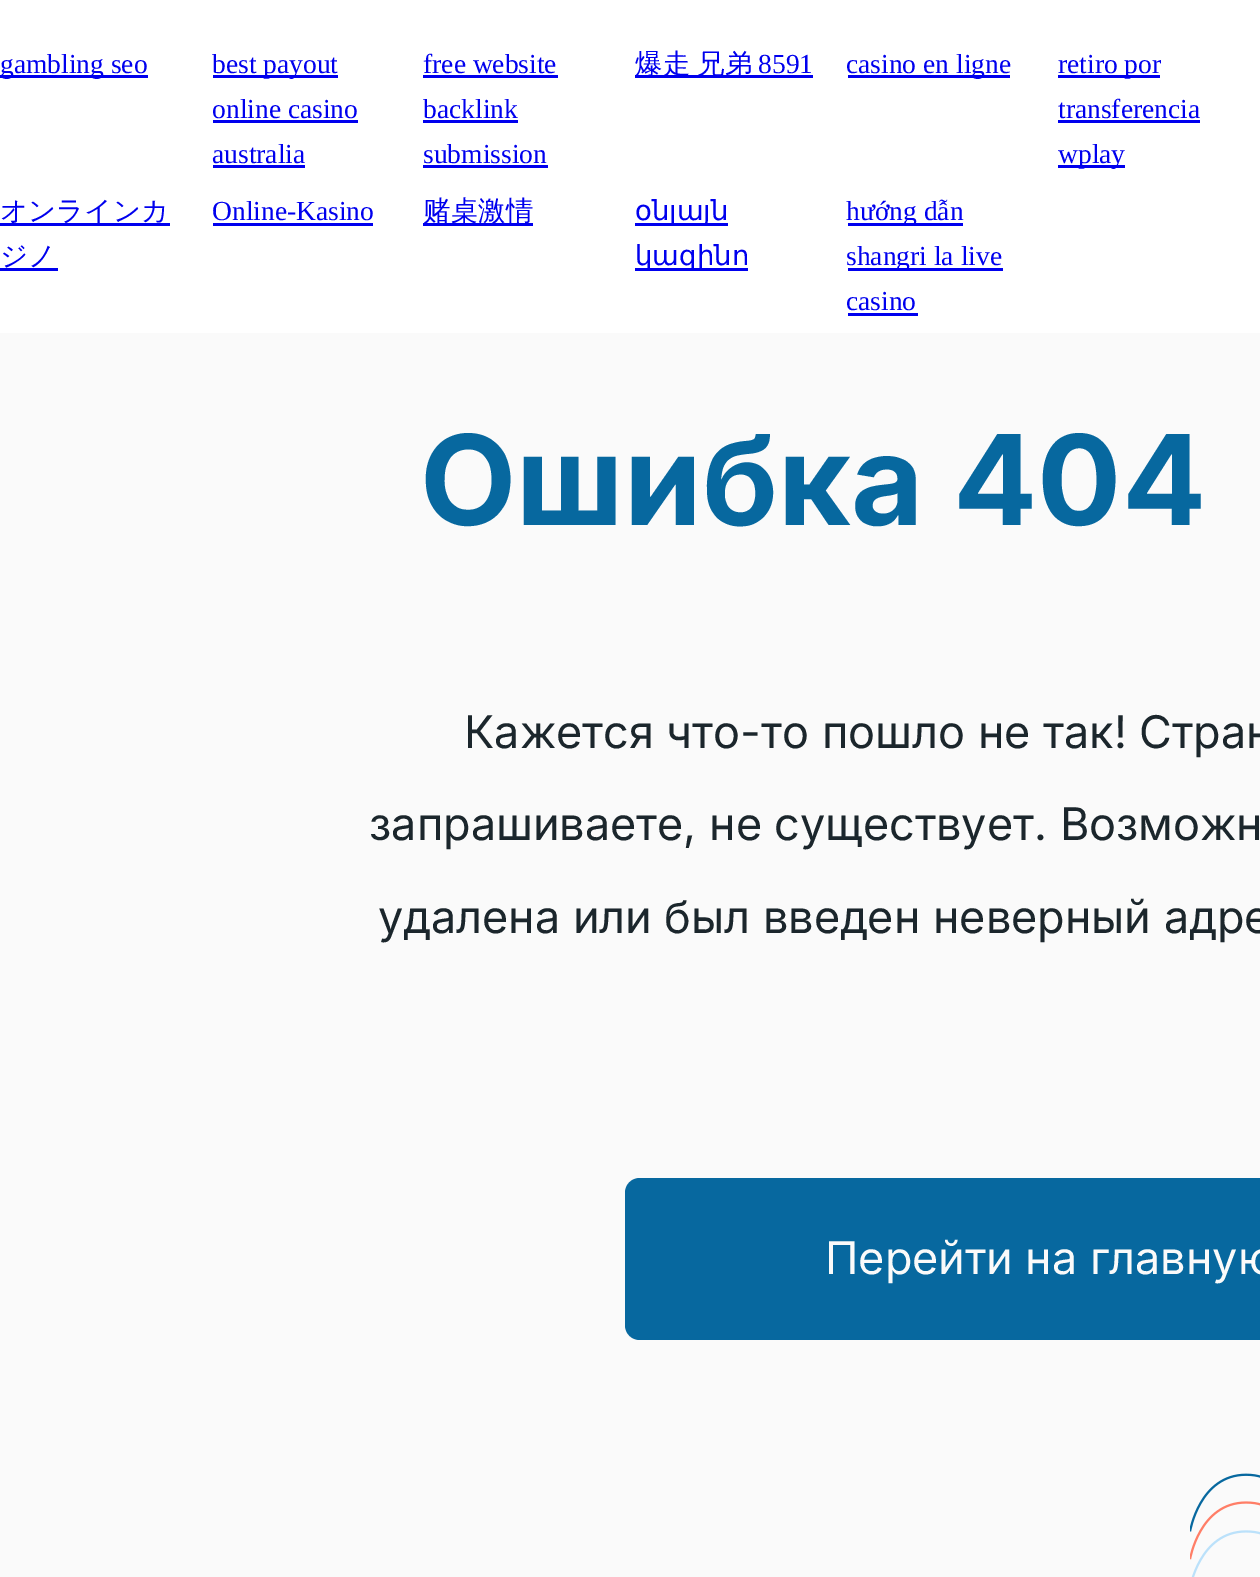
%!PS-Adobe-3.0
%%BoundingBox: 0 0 1260 1577
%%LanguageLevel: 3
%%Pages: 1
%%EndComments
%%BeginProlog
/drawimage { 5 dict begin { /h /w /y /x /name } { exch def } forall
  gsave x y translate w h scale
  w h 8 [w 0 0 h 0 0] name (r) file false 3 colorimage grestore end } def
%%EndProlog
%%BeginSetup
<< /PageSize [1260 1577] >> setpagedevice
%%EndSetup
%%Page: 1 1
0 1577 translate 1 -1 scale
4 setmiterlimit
0.98 setgray
0 0 1260 1577 rectfill
1 setgray
0 0 1260 333 rectfill
0 0 0.933 setrgbcolor
0 75 148 3 rectfill
213 75 125 3 rectfill
213 120 145 3 rectfill
213 165 92 3 rectfill
423 75 135 3 rectfill
423 120 95 3 rectfill
423 165 125 3 rectfill
635 75 178 3 rectfill
848 75 162 3 rectfill
1058 75 102 3 rectfill
1058 120 142 3 rectfill
1058 165 67 3 rectfill
0 223 170 3 rectfill
0 268 58 3 rectfill
213 223 160 3 rectfill
423 223 110 3 rectfill
635 223 93 3 rectfill
635 268 113 3 rectfill
848 223 115 3 rectfill
848 268 155 3 rectfill
848 313 70 3 rectfill
0.027 0.408 0.624 setrgbcolor
newpath 640 1178 moveto 1260 1178 lineto 1260 1340 lineto 640 1340 lineto 631.5 1340 625 1333.5 625 1325 curveto 625 1193 lineto 625 1184.5 631.5 1178 640 1178 curveto closepath fill
(images/1.raw) 1190 1473 70 104 drawimage
/LiberationSerif-Regular [27.5 0 0 -27.5 0 0] selectfont
0 0 0.933 setrgbcolor
0 73 moveto (gambling seo) show
212 73 moveto (best payout) show
212 118 moveto (online casino) show
212 163 moveto (australia) show
423 73 moveto (free website) show
423 118 moveto (backlink) show
423 163 moveto (submission) show
/WenQuanYiZenHei-Medium [27.5 0 0 -27.5 0 0] selectfont
635 73 moveto -1 0 32 (爆走 兄弟) widthshow
/LiberationSerif-Regular [27.5 0 0 -27.5 0 0] selectfont
758 73 moveto (8591) show
846 73 moveto (casino en ligne) show
1058 73 moveto (retiro por) show
1058 118 moveto (transferencia) show
1058 163 moveto (wplay) show
/WenQuanYiZenHei-Medium [27.5 0 0 -27.5 0 0] selectfont
0 220 moveto (オンラインカ) show
0 265 moveto (ジノ) show
/LiberationSerif-Regular [27.5 0 0 -27.5 0 0] selectfont
212 220 moveto (Online-Kasino) show
/WenQuanYiZenHei-Medium [27.5 0 0 -27.5 0 0] selectfont
423 220 moveto (赌桌激情) show
/DejaVuSans-Regular [27.5 0 0 -27.5 0 0] selectfont
635 220 moveto (օնլայն) show
635 265 moveto (կազինո) show
/LiberationSerif-Regular [27.5 0 0 -27.5 0 0] selectfont
846 220 moveto (hướng dẫn) show
846 265 moveto (shangri la live) show
846 310 moveto (casino) show
/Inter-Bold [125 0 0 -125 0 0] selectfont
0.027 0.408 0.624 setrgbcolor
420 525 moveto (Ошибка 404) show
/Inter-Regular [45 0 0 -45 0 0] selectfont
0.106 0.149 0.173 setrgbcolor
464 748 moveto (Кажется что-то пошло не так! Стран) show
369 840 moveto (запрашиваете, не существует. Возможн) show
378 933 moveto (удалена или был введен неверный адре) show
0.98 setgray
825 1274 moveto (Перейти на главную) show
showpage
%%EOF
